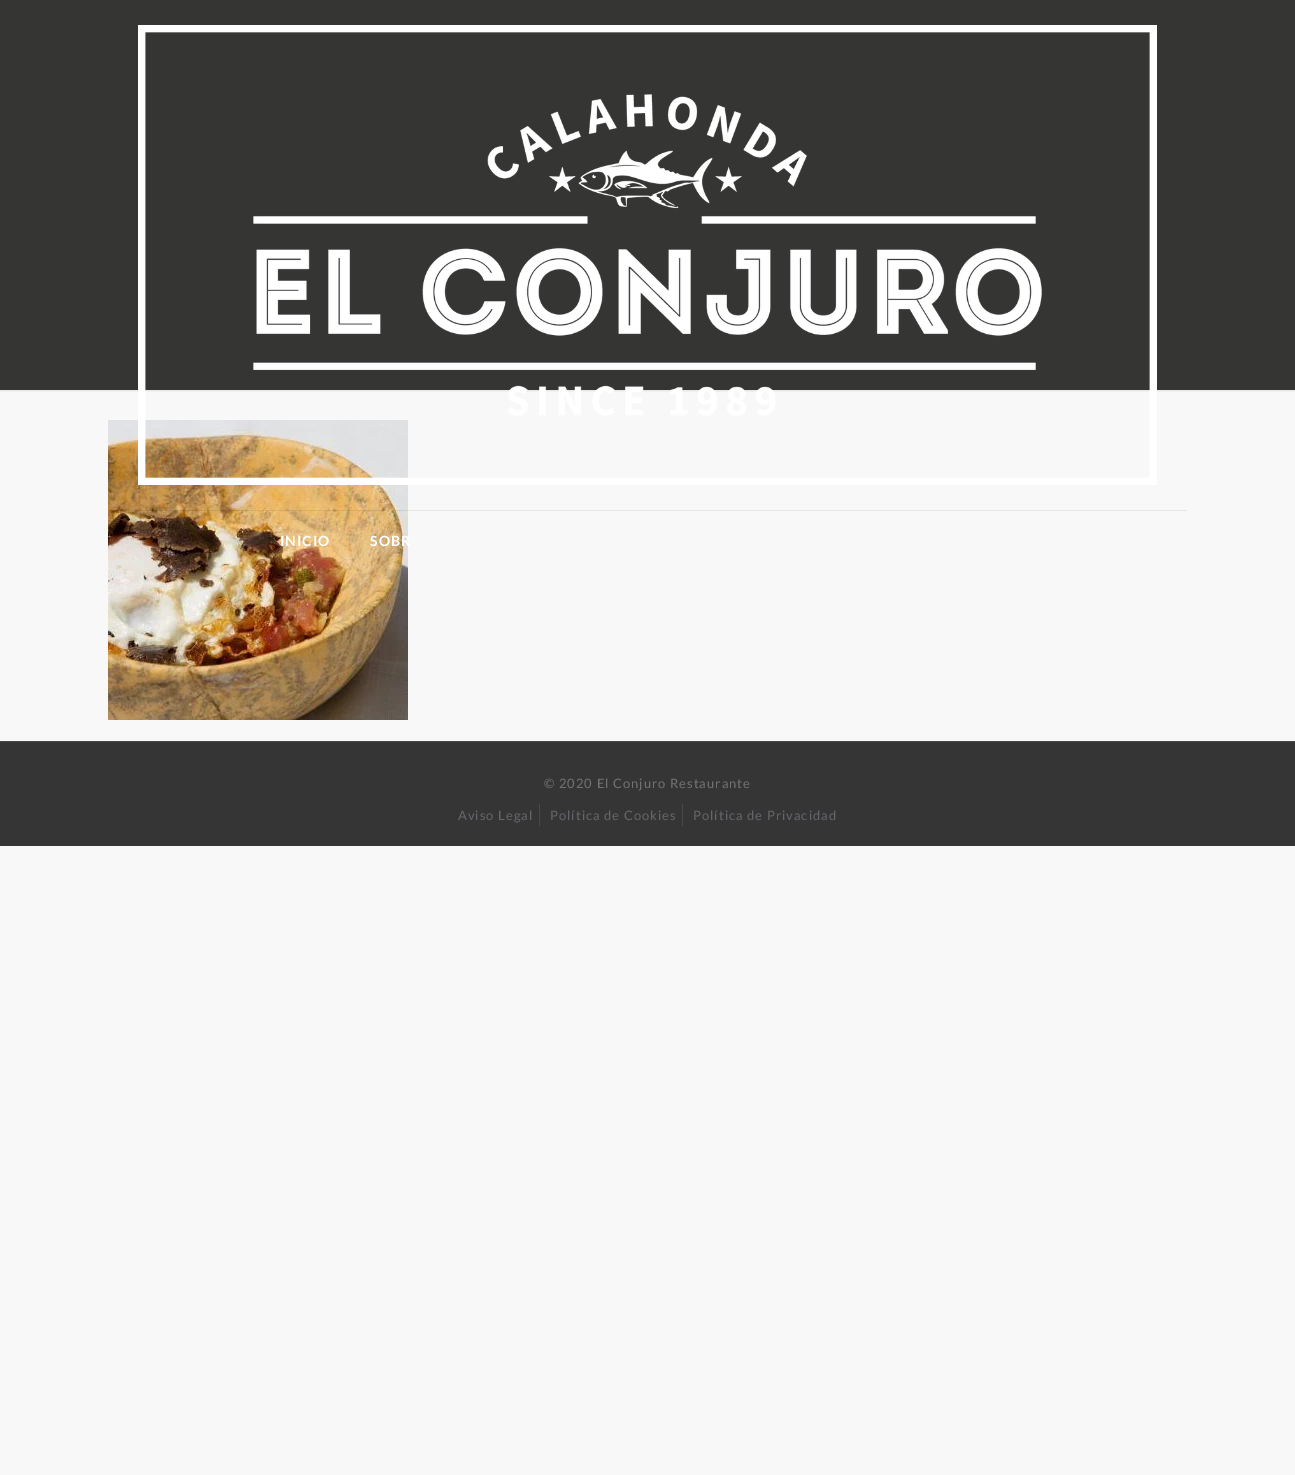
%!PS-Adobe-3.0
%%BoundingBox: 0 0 1295 1475
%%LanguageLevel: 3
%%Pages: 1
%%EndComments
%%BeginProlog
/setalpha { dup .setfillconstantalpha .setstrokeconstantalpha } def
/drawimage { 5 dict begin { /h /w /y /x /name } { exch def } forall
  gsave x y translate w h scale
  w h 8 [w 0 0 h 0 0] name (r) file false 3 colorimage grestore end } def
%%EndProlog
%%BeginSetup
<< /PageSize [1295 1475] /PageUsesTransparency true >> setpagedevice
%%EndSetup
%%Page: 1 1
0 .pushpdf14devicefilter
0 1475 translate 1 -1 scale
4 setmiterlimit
0.973 setgray
0 0 1295 1475 rectfill
(images/1.raw) 108 420 300 300 drawimage
0.208 0.212 0.204 setrgbcolor
0 0 1295 390 rectfill
(images/2.raw) 0 390 1295 2 drawimage
0.08 setalpha
0 setgray
108 510 1079 1 rectfill
1 setalpha
(images/3.raw) 138 25 1019 460 drawimage
0.208 setgray
0 742 1295 104 rectfill
0.286 setgray
0 741 1295 1 rectfill
539 804 1 22 rectfill
682 804 1 22 rectfill
/Lato-Bold [14 0 0 -14 0 0] selectfont
1 setgray
280 546 moveto 1 0 (INICIO) ashow
370 546 moveto 1 0 (SOBR) ashow
/Lato-Regular [13 0 0 -13 0 0] selectfont
0.447 setgray
544 788 moveto 1 0 (© 2020 El Conjuro Restaurante) ashow
0.396 0.4 0.424 setrgbcolor
458 820 moveto 1 0 (Aviso Legal) ashow
550 820 moveto 1 0 (Política de Cookies) ashow
693 820 moveto 1 0 (Política de Privacidad) ashow
.poppdf14devicefilter showpage
%%EOF
